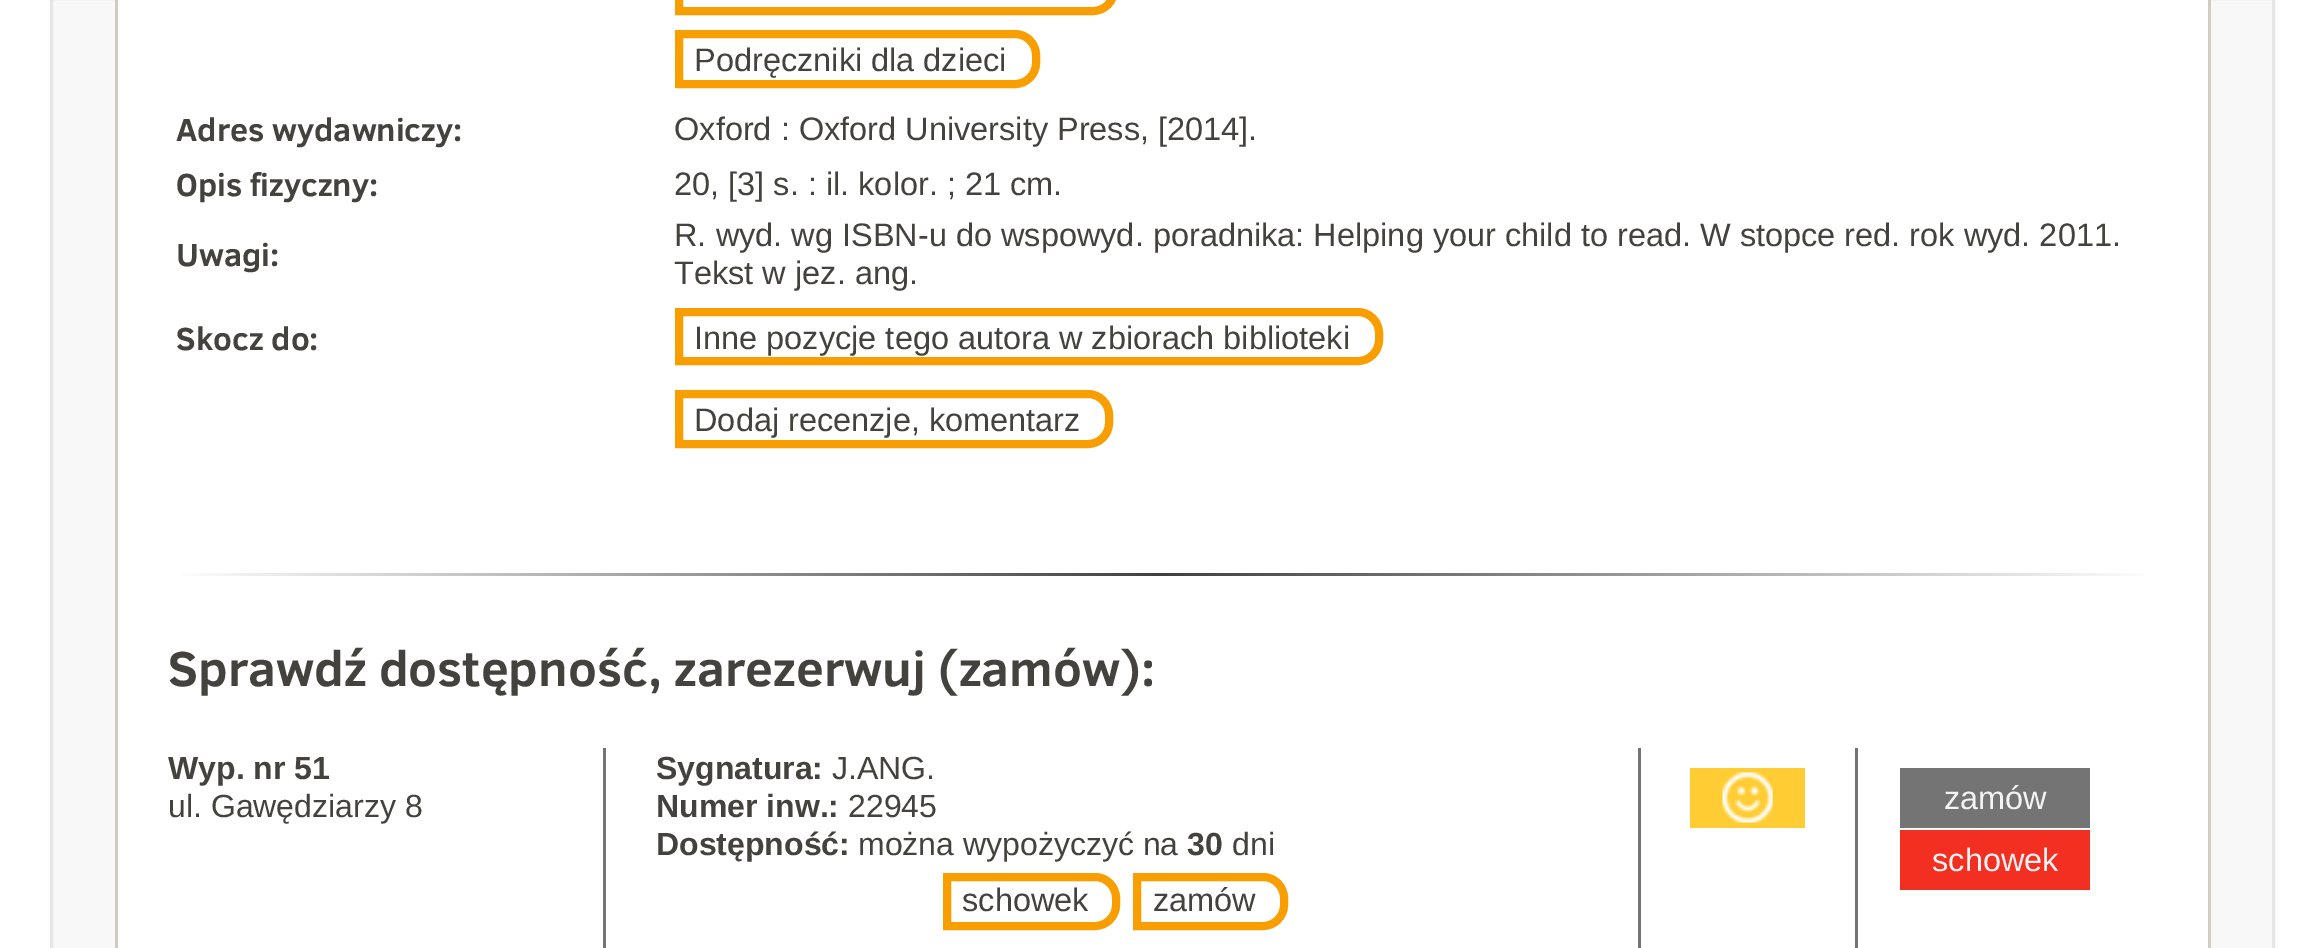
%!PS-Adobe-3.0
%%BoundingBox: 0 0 2324 948
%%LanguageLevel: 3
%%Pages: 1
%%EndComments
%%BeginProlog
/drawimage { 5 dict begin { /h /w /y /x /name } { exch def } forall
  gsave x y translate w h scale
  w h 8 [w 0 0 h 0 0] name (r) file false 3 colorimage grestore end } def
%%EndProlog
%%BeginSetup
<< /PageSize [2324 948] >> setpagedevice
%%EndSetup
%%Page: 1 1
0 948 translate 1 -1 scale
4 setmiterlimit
1 setgray
0 0 2324 948 rectfill
0.973 setgray
newpath 51.5 -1.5 moveto 2273.5 -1.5 lineto 2273.5 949.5 lineto 51.5 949.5 lineto closepath gsave fill grestore
0.902 setgray
3 setlinewidth
stroke
1 setgray
118 0 2090 948 rectfill
0.82 0.8 0.757 setrgbcolor
2208 0 3 948 rectfill
115 0 3 948 rectfill
0.973 0.62 0 setrgbcolor
8 setlinewidth
newpath 679 -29 moveto 1093 -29 lineto 1104.5 -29 1114 -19.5 1114 -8 curveto 1114 -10 lineto 1114 1.5 1104.5 11 1093 11 curveto 679 11 lineto closepath stroke
newpath 679 34 moveto 1015 34 lineto 1026.5 34 1036 43.5 1036 55 curveto 1036 63 lineto 1036 74.5 1026.5 84 1015 84 curveto 679 84 lineto closepath stroke
newpath 679 312 moveto 1358 312 lineto 1369.5 312 1379 321.5 1379 333 curveto 1379 340 lineto 1379 351.5 1369.5 361 1358 361 curveto 679 361 lineto closepath stroke
newpath 679 394 moveto 1088 394 lineto 1099.5 394 1109 403.5 1109 415 curveto 1109 423 lineto 1109 434.5 1099.5 444 1088 444 curveto 679 444 lineto closepath stroke
gsave newpath 181 573 moveto 2145 573 lineto 2145 576 lineto 181 576 lineto closepath clip newpath
<< /ShadingType 2 /ColorSpace /DeviceRGB /Coords [168 574 2158 574] /Extend [true true] /Function << /FunctionType 3 /Domain [0 1] /Functions [<< /FunctionType 2 /Domain [0 1] /C0 [1 1 1] /C1 [0.251 0.251 0.251] /N 1 >> << /FunctionType 2 /Domain [0 1] /C0 [0.251 0.251 0.251] /C1 [1 1 1] /N 1 >>] /Bounds [0.5] /Encode [0 1 0 1] >> >> shfill grestore
0.455 setgray
603 748 3 200 rectfill
1638 748 3 200 rectfill
0.973 0.62 0 setrgbcolor
newpath 947 877 moveto 1095 877 lineto 1106.5 877 1116 886.5 1116 898 curveto 1116 905 lineto 1116 916.5 1106.5 926 1095 926 curveto 947 926 lineto closepath stroke
newpath 1137 877 moveto 1263 877 lineto 1274.5 877 1284 886.5 1284 898 curveto 1284 905 lineto 1284 916.5 1274.5 926 1263 926 curveto 1137 926 lineto closepath stroke
0.455 setgray
1855 748 3 200 rectfill
1 0.8 0.2 setrgbcolor
1690 768 115 60 rectfill
(images/1.raw) 1722 772 51 51 drawimage
0.455 setgray
1900 768 190 60 rectfill
0.953 0.184 0.129 setrgbcolor
1900 830 190 60 rectfill
/LiberationSans-Regular [32.5 0 0 -32.5 0 0] selectfont
0.267 0.259 0.243 setrgbcolor
694 71 moveto (Podręczniki dla dzieci) show
/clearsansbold-Bold [32.5 0 0 -32.5 0 0] selectfont
176 141 moveto (Adres wydawniczy:) show
/LiberationSans-Regular [32.5 0 0 -32.5 0 0] selectfont
674 140 moveto (Oxford : Oxford University Press, [2014].) show
/clearsansbold-Bold [32.5 0 0 -32.5 0 0] selectfont
176 196 moveto (Opis fizyczny:) show
/LiberationSans-Regular [32.5 0 0 -32.5 0 0] selectfont
674 195 moveto (20, [3] s. : il. kolor. ; 21 cm.) show
/clearsansbold-Bold [32.5 0 0 -32.5 0 0] selectfont
176 266 moveto (Uwagi:) show
/LiberationSans-Regular [32.5 0 0 -32.5 0 0] selectfont
674 246 moveto (R. wyd. wg ISBN-u do wspowyd. poradnika: Helping your child to read. W stopce red. rok wyd. 2011.) show
674 284 moveto (Tekst w jez. ang.) show
/clearsansbold-Bold [32.5 0 0 -32.5 0 0] selectfont
176 350 moveto (Skocz do:) show
/LiberationSans-Regular [32.5 0 0 -32.5 0 0] selectfont
694 349 moveto (Inne pozycje tego autora w zbiorach biblioteki) show
694 431 moveto (Dodaj recenzje, komentarz) show
/clearsansbold-Bold [50 0 0 -50 0 0] selectfont
168 686 moveto (Sprawdź dostępność, zarezerwuj \(zamów\):) show
/LiberationSans-Bold [32 0 0 -32 0 0] selectfont
168 779 moveto (Wyp. nr 51) show
/LiberationSans-Regular [32 0 0 -32 0 0] selectfont
168 817 moveto (ul. Gawędziarzy 8) show
/LiberationSans-Bold [32 0 0 -32 0 0] selectfont
656 779 moveto (Sygnatura:) show
/LiberationSans-Regular [32 0 0 -32 0 0] selectfont
832 779 moveto (J.ANG.) show
/LiberationSans-Bold [32 0 0 -32 0 0] selectfont
656 817 moveto (Numer inw.:) show
/LiberationSans-Regular [32 0 0 -32 0 0] selectfont
848 817 moveto (22945) show
/LiberationSans-Bold [32 0 0 -32 0 0] selectfont
656 855 moveto (Dostępność:) show
/LiberationSans-Regular [32 0 0 -32 0 0] selectfont
858 855 moveto (można wypożyczyć na) show
/LiberationSans-Bold [32 0 0 -32 0 0] selectfont
1187 855 moveto (30) show
/LiberationSans-Regular [32 0 0 -32 0 0] selectfont
1232 855 moveto (dni) show
/LiberationSans-Regular [32.5 0 0 -32.5 0 0] selectfont
962 911 moveto (schowek) show
1153 911 moveto (zamów) show
0.953 setgray
1944 809 moveto (zamów) show
1932 871 moveto (schowek) show
showpage
%%EOF
